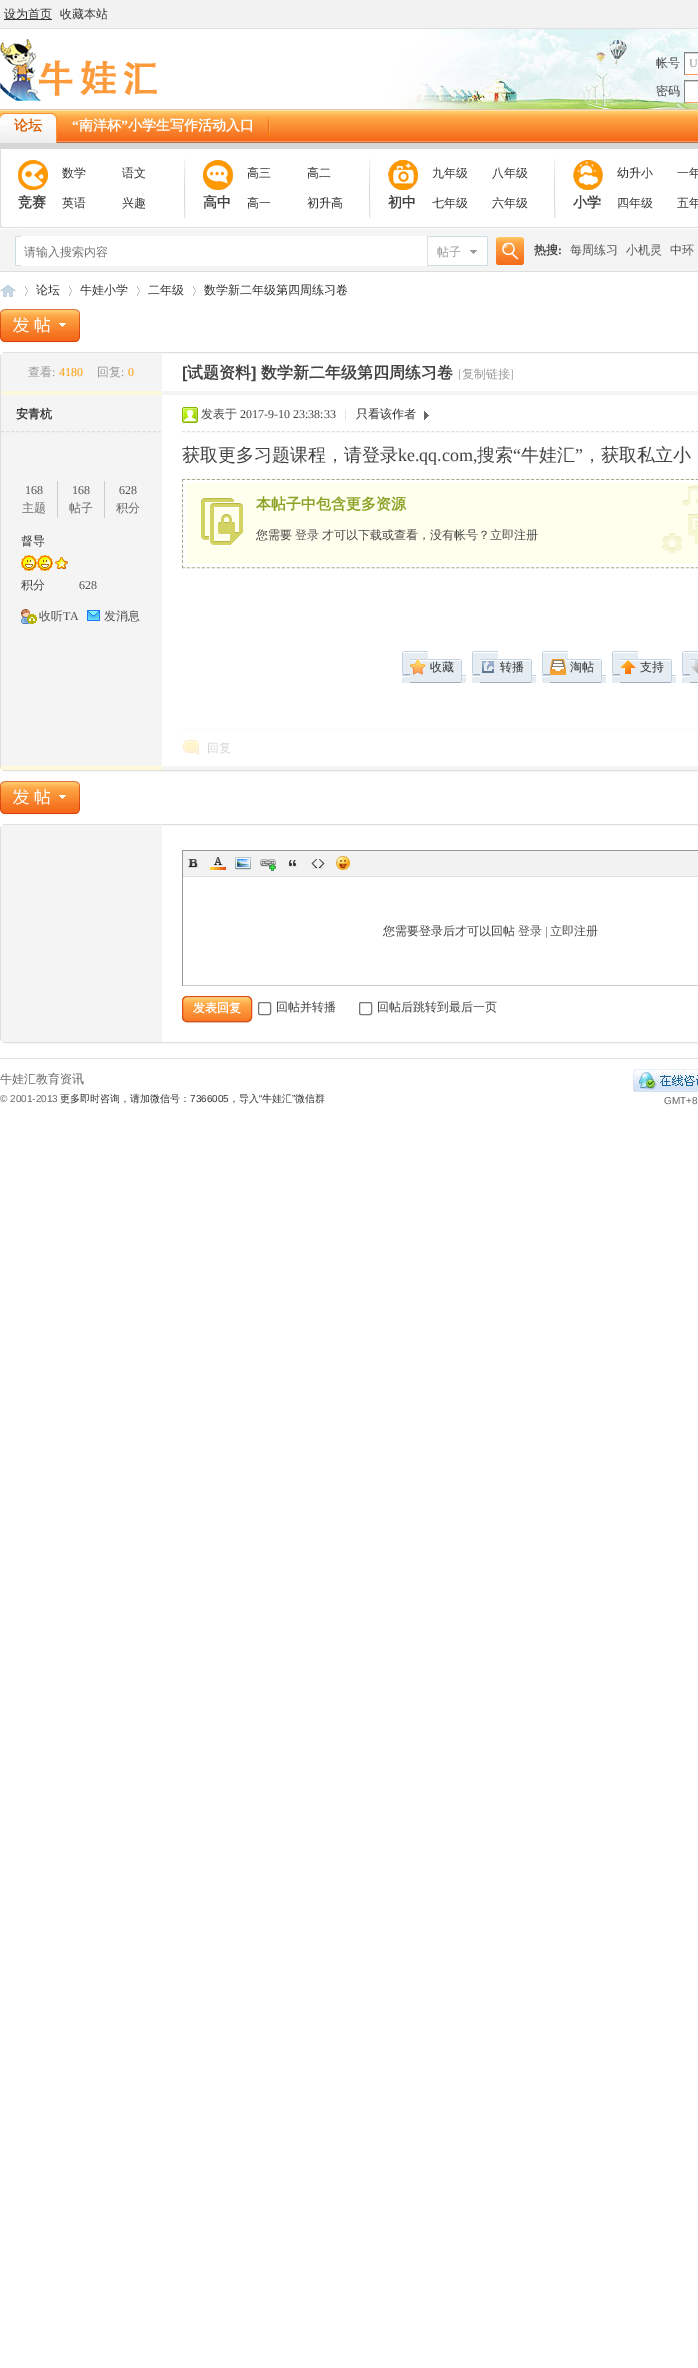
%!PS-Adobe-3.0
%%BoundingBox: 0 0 698 2368
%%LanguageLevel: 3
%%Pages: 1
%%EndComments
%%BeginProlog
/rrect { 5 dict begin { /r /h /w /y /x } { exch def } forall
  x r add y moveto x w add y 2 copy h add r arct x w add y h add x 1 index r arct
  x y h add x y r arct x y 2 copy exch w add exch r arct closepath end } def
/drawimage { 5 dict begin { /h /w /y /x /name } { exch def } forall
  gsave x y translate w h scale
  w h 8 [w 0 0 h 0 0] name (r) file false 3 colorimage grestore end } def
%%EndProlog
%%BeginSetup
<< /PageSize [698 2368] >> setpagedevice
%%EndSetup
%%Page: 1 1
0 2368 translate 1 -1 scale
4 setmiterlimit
1 setgray
0 0 698 2368 rectfill
(images/1.raw) 0 143 698 6 drawimage
0.949 setgray
0 0 698 28 rectfill
0.875 setgray
0 28 698 1 rectfill
0.2 setgray
4 19 48 1 rectfill
(images/2.raw) 380 29 318 80 drawimage
(images/3.raw) 0 39 157 62 drawimage
1 setgray
685 54 13 20 rectfill
0.831 setgray
684 53 14 1 rectfill
0.518 setgray
684 52 14 1 rectfill
1 0.6 0.4 setrgbcolor
684 74 14 1 rectfill
0.518 setgray
684 52 1 23 rectfill
1 setgray
685 82 13 20 rectfill
0.831 setgray
684 81 14 1 rectfill
0.518 setgray
684 80 14 1 rectfill
1 0.6 0.4 setrgbcolor
684 102 14 1 rectfill
0.518 setgray
684 80 1 23 rectfill
(images/4.raw) 57 109 641 34 drawimage
(images/5.raw) 50 109 7 34 drawimage
(images/6.raw) 0 109 50 34 drawimage
(images/7.raw) 268 117 2 19 drawimage
0.871 setgray
newpath 0 149 moveto 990 149 lineto 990 225 lineto 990 227 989 228 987 228 curveto 3 228 lineto 1 228 0 227 0 225 curveto closepath 1 149 moveto 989 149 lineto 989 225 lineto 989 226 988 227 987 227 curveto 3 227 lineto 2 227 1 226 1 225 curveto closepath eofill
(images/8.raw) 184 159 2 59 drawimage
(images/9.raw) 18 160 30 30 drawimage
(images/8.raw) 369 159 2 59 drawimage
(images/10.raw) 203 160 30 30 drawimage
(images/8.raw) 554 159 2 59 drawimage
(images/11.raw) 388 160 30 30 drawimage
(images/12.raw) 573 160 30 30 drawimage
0.957 setgray
0 229 698 42 rectfill
0.871 setgray
0 271 698 1 rectfill
(images/13.raw) 15 229 6 37 drawimage
1 setgray
21 236 406 30 rectfill
(images/14.raw) 427 236 61 30 drawimage
(images/15.raw) 496 237 28 28 drawimage
(images/16.raw) 0 285 16 12 drawimage
(images/17.raw) 25 286 3 10 drawimage
(images/17.raw) 69 286 3 10 drawimage
(images/17.raw) 137 286 3 10 drawimage
(images/17.raw) 193 286 3 10 drawimage
(images/18.raw) 0 309 80 33 drawimage
0.875 setgray
0.5 352.5 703 418 4.5 rrect stroke
0.957 setgray
1 353 161 38 rectfill
0.996 0.973 0.863 setrgbcolor
1 391 161 4 rectfill
0.957 setgray
162 391 536 4 rectfill
1 395 161 371 rectfill
0.875 setgray
[3 2.06] 0 setdash
newpath 1 431.5 moveto 161 431.5 lineto stroke
0.8 setgray
57 481 1 37 rectfill
104 481 1 37 rectfill
(images/19.raw) 21 555 16 16 drawimage
(images/19.raw) 37 555 16 16 drawimage
(images/20.raw) 55 557 13 12 drawimage
(images/21.raw) 21 609 16 15 drawimage
(images/22.raw) 87 610 13 11 drawimage
0.875 setgray
[3 1.99] 0 setdash
newpath 182 431.5 moveto 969 431.5 lineto stroke
(images/23.raw) 182 407 16 16 drawimage
(images/24.raw) 424 411 5 9 drawimage
1 1 0.933 setrgbcolor
182 479 516 89 rectfill
(images/25.raw) 662 485 36 70 drawimage
0.667 0.667 0.573 setrgbcolor
newpath 182 479.5 moveto 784 479.5 lineto stroke
newpath 182 567.5 moveto 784 567.5 lineto stroke
[3 2.06] 0 setdash
newpath 182.5 479 moveto 182.5 568 lineto stroke
(images/26.raw) 201 498 42 48 drawimage
1 setgray
3 setlinewidth
[] 0 setdash
184.5 481.5 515 84 rectstroke
(images/27.raw) 402 651 64 32 drawimage
(images/28.raw) 410 659 52 24 drawimage
(images/29.raw) 410 659 16 16 drawimage
(images/27.raw) 472 651 64 32 drawimage
(images/28.raw) 480 659 52 24 drawimage
(images/30.raw) 482 661 12 12 drawimage
(images/27.raw) 542 651 64 32 drawimage
(images/28.raw) 550 659 52 24 drawimage
(images/31.raw) 550 659 16 16 drawimage
(images/27.raw) 612 651 64 32 drawimage
(images/28.raw) 620 659 52 24 drawimage
(images/32.raw) 620 660 16 14 drawimage
(images/33.raw) 682 651 16 32 drawimage
(images/34.raw) 690 659 8 24 drawimage
(images/35.raw) 690 660 8 14 drawimage
0.976 setgray
1 setlinewidth
[3 1.99] 0 setdash
newpath 182 729.5 moveto 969 729.5 lineto stroke
(images/36.raw) 183 740 16 15 drawimage
0.996 0.973 0.863 setrgbcolor
1 766 161 4 rectfill
0.957 setgray
162 766 536 4 rectfill
(images/18.raw) 0 781 80 33 drawimage
0.875 setgray
[] 0 setdash
0.5 824.5 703 218 4.5 rrect stroke
0.996 0.973 0.863 setrgbcolor
161 824 1 1 rectfill
0.957 setgray
1 825 161 217 rectfill
0.6 setgray
182 850 516 1 rectfill
0.8 setgray
182 985 516 1 rectfill
0.6 setgray
182 850 1 136 rectfill
0.949 setgray
183 851 515 25 rectfill
0.875 setgray
183 876 515 1 rectfill
(images/37.raw) 188 859 11 9 drawimage
(images/38.raw) 210 857 16 13 drawimage
(images/39.raw) 235 857 16 13 drawimage
(images/40.raw) 260 859 17 12 drawimage
(images/41.raw) 288 860 9 7 drawimage
(images/42.raw) 311 859 14 10 drawimage
(images/43.raw) 335 856 15 14 drawimage
0.898 setgray
newpath 182 1017 moveto 182 1025 191 1023 197 1023 curveto 237 1023 lineto 243 1023 252 1025 252 1017 curveto 252 1020 250 1022 247 1022 curveto 187 1022 lineto 184 1022 182 1020 182 1017 curveto closepath fill
(images/44.raw) 182 996 70 26 drawimage
0.863 0.31 0.086 setrgbcolor
182.5 996.5 69 25 4.5 rrect stroke
0.463 setgray
258.5 1002.5 12 12 1.5 rrect stroke
359.5 1002.5 12 12 1.5 rrect stroke
0.875 setgray
0 1058 698 1 rectfill
(images/45.raw) 633 1069 65 23 drawimage
/WenQuanYiZenHei-Medium [12 0 0 -12 0 0] selectfont
0.2 setgray
4 18 moveto (设为首页) show
60 18 moveto (收藏本站) show
0.267 setgray
656 67 moveto (帐号) show
/LiberationSerif-Regular [12 0 0 -12 0 0] selectfont
0.6 setgray
689 67 moveto (U) show
/WenQuanYiZenHei-Medium [12 0 0 -12 0 0] selectfont
0.267 setgray
656 95 moveto (密码) show
/WenQuanYiZenHei-Bold [14 0 0 -14 0 0] selectfont
0.871 0.38 0 setrgbcolor
14 130 moveto (论坛) show
/LiberationSerif-Bold [14 0 0 -14 0 0] selectfont
1 setgray
72 130 moveto (“) show
/WenQuanYiZenHei-Bold [14 0 0 -14 0 0] selectfont
79 130 moveto (南洋杯) show
/LiberationSerif-Bold [14 0 0 -14 0 0] selectfont
121 130 moveto (”) show
/WenQuanYiZenHei-Bold [14 0 0 -14 0 0] selectfont
128 130 moveto (小学生写作活动入口) show
0.267 setgray
18 207 moveto (竞赛) show
/WenQuanYiZenHei-Medium [12 0 0 -12 0 0] selectfont
0.2 setgray
62 177 moveto (数学) show
122 177 moveto (语文) show
62 207 moveto (英语) show
122 207 moveto (兴趣) show
/WenQuanYiZenHei-Bold [14 0 0 -14 0 0] selectfont
0.267 setgray
203 207 moveto (高中) show
/WenQuanYiZenHei-Medium [12 0 0 -12 0 0] selectfont
0.2 setgray
247 177 moveto (高三) show
307 177 moveto (高二) show
247 207 moveto (高一) show
307 207 moveto (初升高) show
/WenQuanYiZenHei-Bold [14 0 0 -14 0 0] selectfont
0.267 setgray
388 207 moveto (初中) show
/WenQuanYiZenHei-Medium [12 0 0 -12 0 0] selectfont
0.2 setgray
432 177 moveto (九年级) show
492 177 moveto (八年级) show
432 207 moveto (七年级) show
492 207 moveto (六年级) show
/WenQuanYiZenHei-Bold [14 0 0 -14 0 0] selectfont
0.267 setgray
573 207 moveto (小学) show
/WenQuanYiZenHei-Medium [12 0 0 -12 0 0] selectfont
0.2 setgray
617 177 moveto (幼升小) show
677 177 moveto (一年) show
617 207 moveto (四年级) show
677 207 moveto (五年) show
0.459 setgray
24 256 moveto (请输入搜索内容) show
0.6 setgray
437 256 moveto (帖子) show
/WenQuanYiZenHei-Bold [12 0 0 -12 0 0] selectfont
0.267 setgray
534 254 moveto (热搜) show
/LiberationSerif-Bold [12 0 0 -12 0 0] selectfont
558 254 moveto (:) show
/WenQuanYiZenHei-Medium [12 0 0 -12 0 0] selectfont
0.333 setgray
570 254 moveto (每周练习) show
626 254 moveto (小机灵) show
670 254 moveto (中环) show
0.2 setgray
36 294 moveto (论坛) show
80 294 moveto (牛娃小学) show
148 294 moveto (二年级) show
204 294 moveto (数学新二年级第四周练习卷) show
0.6 setgray
28 376 moveto (查看) show
/LiberationSerif-Regular [12 0 0 -12 0 0] selectfont
52 376 moveto (:) show
1 0.6 0 setrgbcolor
59 376 moveto (4180) show
/WenQuanYiZenHei-Medium [12 0 0 -12 0 0] selectfont
0.6 setgray
97 376 moveto (回复) show
/LiberationSerif-Regular [12 0 0 -12 0 0] selectfont
121 376 moveto (:) show
1 0.6 0 setrgbcolor
128 376 moveto (0) show
/LiberationSans-Bold [16 0 0 -16 0 0] selectfont
0.267 setgray
182 378 moveto ([) show
/WenQuanYiZenHei-Bold [16 0 0 -16 0 0] selectfont
187 378 moveto (试题资料) show
/LiberationSans-Bold [16 0 0 -16 0 0] selectfont
251 378 moveto (]) show
/WenQuanYiZenHei-Bold [16 0 0 -16 0 0] selectfont
261 378 moveto (数学新二年级第四周练习卷) show
/LiberationSerif-Regular [12 0 0 -12 0 0] selectfont
0.6 setgray
458 378 moveto ([) show
/WenQuanYiZenHei-Medium [12 0 0 -12 0 0] selectfont
462 378 moveto (复制链接) show
/LiberationSerif-Regular [12 0 0 -12 0 0] selectfont
510 378 moveto (]) show
/WenQuanYiZenHei-Bold [12 0 0 -12 0 0] selectfont
0.2 setgray
16 418 moveto (安青杭) show
/LiberationSerif-Regular [12 0 0 -12 0 0] selectfont
0.333 setgray
25 494 moveto (168) show
/WenQuanYiZenHei-Medium [12 0 0 -12 0 0] selectfont
0.4 setgray
22 512 moveto (主题) show
/LiberationSerif-Regular [12 0 0 -12 0 0] selectfont
0.333 setgray
72 494 moveto (168) show
/WenQuanYiZenHei-Medium [12 0 0 -12 0 0] selectfont
0.4 setgray
69 512 moveto (帖子) show
/LiberationSerif-Regular [12 0 0 -12 0 0] selectfont
0.333 setgray
119 494 moveto (628) show
/WenQuanYiZenHei-Medium [12 0 0 -12 0 0] selectfont
0.4 setgray
116 512 moveto (积分) show
0.2 setgray
21 545 moveto (督导) show
0.267 setgray
21 589 moveto (积分) show
/LiberationSerif-Regular [12 0 0 -12 0 0] selectfont
0.333 setgray
79 589 moveto (628) show
/WenQuanYiZenHei-Medium [12 0 0 -12 0 0] selectfont
39 620 moveto (收听) show
/LiberationSerif-Regular [12 0 0 -12 0 0] selectfont
63 620 moveto (TA) show
/WenQuanYiZenHei-Medium [12 0 0 -12 0 0] selectfont
104 620 moveto (发消息) show
0.267 setgray
201 418 moveto (发表于) show
/LiberationSerif-Regular [12 0 0 -12 0 0] selectfont
240 418 moveto (2017-9-10 23:38:33) show
0.8 setgray
344 418 moveto (|) show
/WenQuanYiZenHei-Medium [12 0 0 -12 0 0] selectfont
0.2 setgray
356 418 moveto (只看该作者) show
/WenQuanYiZenHei-Medium [18 0 0 -18 0 0] selectfont
0.267 setgray
182 461 moveto (获取更多习题课程，请登录) show
/LiberationSerif-Regular [18 0 0 -18 0 0] selectfont
398 461 moveto (ke.qq.com,) show
/WenQuanYiZenHei-Medium [18 0 0 -18 0 0] selectfont
477 461 moveto (搜索) show
/LiberationSerif-Regular [18 0 0 -18 0 0] selectfont
513 461 moveto (“) show
/WenQuanYiZenHei-Medium [18 0 0 -18 0 0] selectfont
521 461 moveto (牛娃汇) show
/LiberationSerif-Regular [18 0 0 -18 0 0] selectfont
575 461 moveto (”) show
/WenQuanYiZenHei-Medium [18 0 0 -18 0 0] selectfont
583 461 moveto (，获取私立小) show
/WenQuanYiZenHei-Bold [15 0 0 -15 0 0] selectfont
0.549 0.635 0.149 setrgbcolor
256 509 moveto (本帖子中包含更多资源) show
/WenQuanYiZenHei-Medium [12 0 0 -12 0 0] selectfont
0.267 setgray
256 539 moveto (您需要) show
0.333 setgray
295 539 moveto (登录) show
0.267 setgray
322 539 moveto (才可以下载或查看，没有帐号？) show
0.333 setgray
490 539 moveto (立即注册) show
0.2 setgray
430 671 moveto (收藏) show
500 671 moveto (转播) show
570 671 moveto (淘帖) show
640 671 moveto (支持) show
0.839 setgray
207 752 moveto (回复) show
0.267 setgray
383 935 moveto (您需要登录后才可以回帖) show
0.333 setgray
518 935 moveto (登录) show
/LiberationSerif-Regular [12 0 0 -12 0 0] selectfont
0.267 setgray
545 935 moveto (|) show
/WenQuanYiZenHei-Medium [12 0 0 -12 0 0] selectfont
0.333 setgray
550 935 moveto (立即注册) show
/WenQuanYiZenHei-Bold [12 0 0 -12 0 0] selectfont
1 setgray
193 1012 moveto (发表回复) show
/WenQuanYiZenHei-Medium [12 0 0 -12 0 0] selectfont
0.267 setgray
276 1011 moveto (回帖并转播) show
377 1011 moveto (回帖后跳转到最后一页) show
0.4 setgray
0 1083 moveto (牛娃汇教育资讯) show
/LiberationSans-Regular [10 0 0 -10 0 0] selectfont
0 1102 moveto (© 2001-2013) show
/WenQuanYiZenHei-Medium [10 0 0 -10 0 0] selectfont
0.2 setgray
60 1102 moveto (更多即时咨询，请加微信号：) show
/LiberationSans-Regular [10 0 0 -10 0 0] selectfont
190 1102 moveto (7366005) show
/WenQuanYiZenHei-Medium [10 0 0 -10 0 0] selectfont
229 1102 moveto (，导入) show
/LiberationSans-Regular [10 0 0 -10 0 0] selectfont
259 1102 moveto (“) show
/WenQuanYiZenHei-Medium [10 0 0 -10 0 0] selectfont
262 1102 moveto (牛娃汇) show
/LiberationSans-Regular [10 0 0 -10 0 0] selectfont
292 1102 moveto (”) show
/WenQuanYiZenHei-Medium [10 0 0 -10 0 0] selectfont
295 1102 moveto (微信群) show
/LiberationSans-Regular [10 0 0 -10 0 0] selectfont
0.4 setgray
664 1104 moveto (GMT+8) show
showpage
%%EOF
